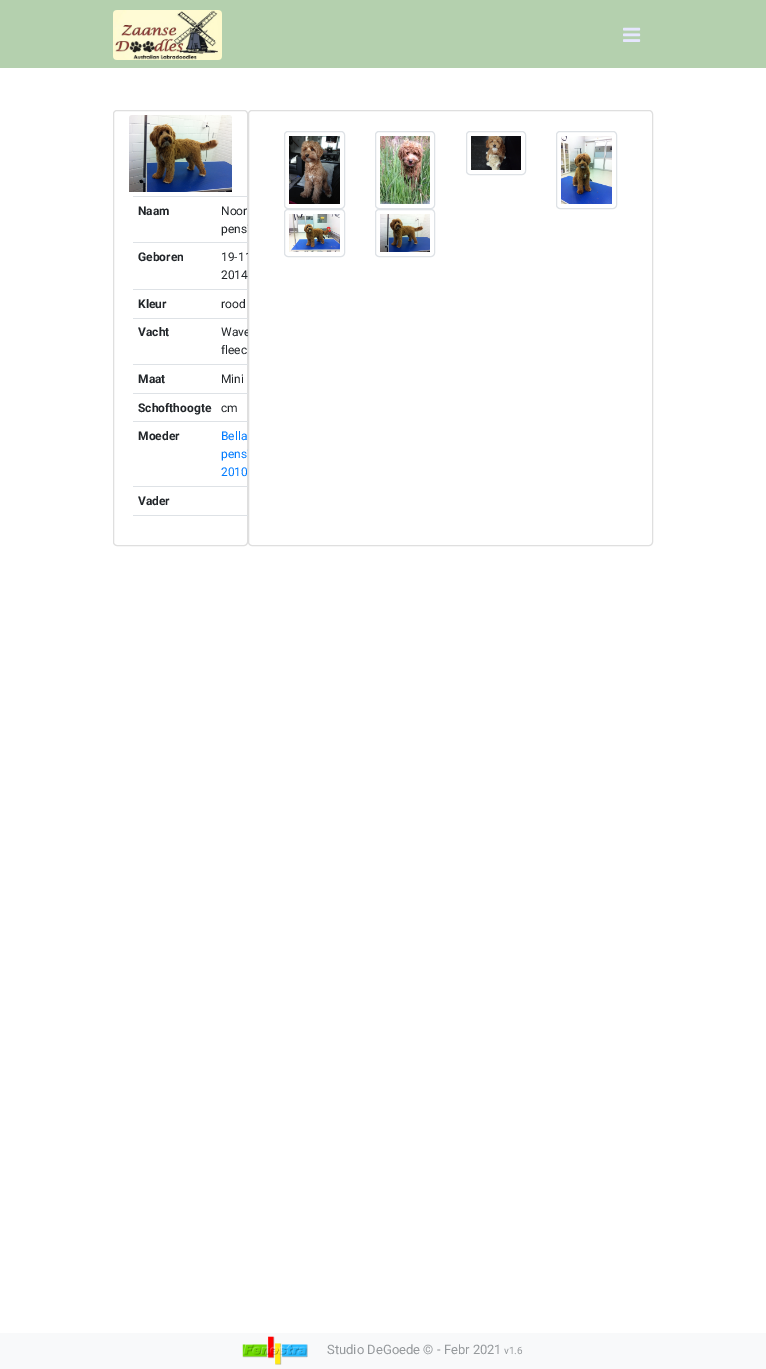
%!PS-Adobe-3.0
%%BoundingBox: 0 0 766 1369
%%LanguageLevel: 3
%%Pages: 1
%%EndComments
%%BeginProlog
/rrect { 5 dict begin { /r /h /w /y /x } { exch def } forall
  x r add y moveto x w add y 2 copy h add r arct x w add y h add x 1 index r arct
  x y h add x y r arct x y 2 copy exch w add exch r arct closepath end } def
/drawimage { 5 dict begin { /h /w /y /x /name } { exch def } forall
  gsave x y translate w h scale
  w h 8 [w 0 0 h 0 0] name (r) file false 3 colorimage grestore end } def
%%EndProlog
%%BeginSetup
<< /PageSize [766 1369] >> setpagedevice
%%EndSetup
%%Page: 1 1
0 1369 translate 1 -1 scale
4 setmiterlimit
1 setgray
0 0 766 1369 rectfill
0.706 0.816 0.682 setrgbcolor
0 0 766 68 rectfill
(images/1.raw) 113 10 109 50 drawimage
(images/2.raw) 623 27 18 15 drawimage
0.875 setgray
113.5 110.5 134 435 3.5 rrect stroke
(images/3.raw) 129 115 103 77 drawimage
0.871 0.886 0.902 setrgbcolor
133 196 115 1 rectfill
133 242 115 1 rectfill
133 289 115 1 rectfill
133 318 115 1 rectfill
133 364 115 1 rectfill
133 393 115 1 rectfill
133 421 115 1 rectfill
133 486 115 1 rectfill
133 515 115 1 rectfill
0.973 0.976 0.98 setrgbcolor
0 1333 766 36 rectfill
(images/10.raw) 242 1336 66 29 drawimage
/Roboto-Bold [12 0 0 -12 0 0] selectfont
0.129 0.145 0.161 setrgbcolor
138 215 moveto (Naam) show
/Roboto-Regular [12 0 0 -12 0 0] selectfont
221 215 moveto (Noor) show
221 233 moveto (pensi) show
/Roboto-Bold [12 0 0 -12 0 0] selectfont
138 261 moveto (Geboren) show
/Roboto-Regular [12 0 0 -12 0 0] selectfont
221 261 moveto (19-11) show
221 279 moveto (2014) show
/Roboto-Bold [12 0 0 -12 0 0] selectfont
138 308 moveto (Kleur) show
/Roboto-Regular [12 0 0 -12 0 0] selectfont
221 308 moveto (rood) show
/Roboto-Bold [12 0 0 -12 0 0] selectfont
138 336 moveto (Vacht) show
/Roboto-Regular [12 0 0 -12 0 0] selectfont
221 336 moveto (Wave) show
221 354 moveto (fleec) show
/Roboto-Bold [12 0 0 -12 0 0] selectfont
138 383 moveto (Maat) show
/Roboto-Regular [12 0 0 -12 0 0] selectfont
221 383 moveto (Mini) show
/Roboto-Bold [12 0 0 -12 0 0] selectfont
138 412 moveto (Schofthoogte) show
/Roboto-Regular [12 0 0 -12 0 0] selectfont
221 412 moveto (cm) show
/Roboto-Bold [12 0 0 -12 0 0] selectfont
138 440 moveto (Moeder) show
/Roboto-Regular [12 0 0 -12 0 0] selectfont
0 0.482 1 setrgbcolor
221 440 moveto (Bella) show
221 458 moveto (pensi) show
221 476 moveto (2010) show
/Roboto-Bold [12 0 0 -12 0 0] selectfont
0.129 0.145 0.161 setrgbcolor
138 505 moveto (Vader) show
1 setgray
248.5 110.5 404 435 3.5 rrect gsave fill grestore
0.875 setgray
stroke
0.871 0.886 0.902 setrgbcolor
284.5 131.5 60 77 3.5 rrect stroke
(images/4.raw) 289 136 51 68 drawimage
375.5 131.5 59 77 3.5 rrect stroke
(images/5.raw) 380 136 50 68 drawimage
466.5 131.5 59 43 3.5 rrect stroke
(images/6.raw) 471 136 50 34 drawimage
556.5 131.5 60 77 3.5 rrect stroke
(images/7.raw) 561 136 51 68 drawimage
284.5 209.5 60 47 3.5 rrect stroke
(images/8.raw) 289 214 51 38 drawimage
375.5 209.5 59 47 3.5 rrect stroke
(images/9.raw) 380 214 50 38 drawimage
/Roboto-Regular [13 0 0 -13 0 0] selectfont
0.584 0.6 0.612 setrgbcolor
327 1354 moveto (Studio DeGoede © - Febr 2021) show
/Roboto-Regular [10 0 0 -10 0 0] selectfont
504 1354 moveto (v1.6) show
showpage
%%EOF
